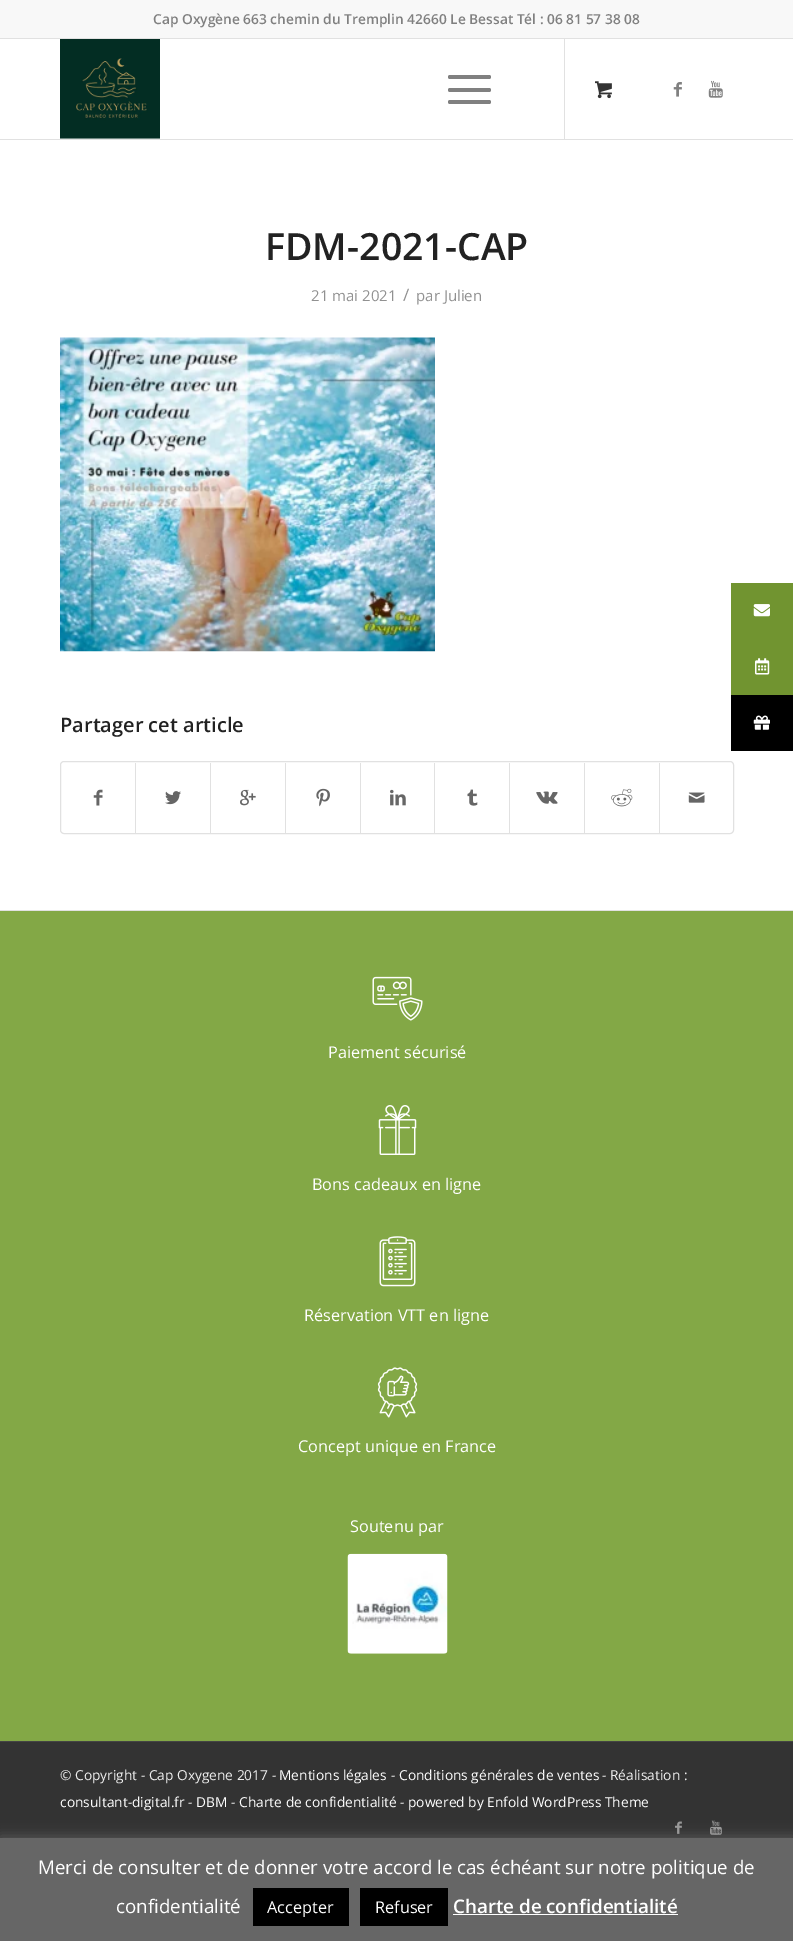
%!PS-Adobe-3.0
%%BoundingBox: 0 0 793 1941
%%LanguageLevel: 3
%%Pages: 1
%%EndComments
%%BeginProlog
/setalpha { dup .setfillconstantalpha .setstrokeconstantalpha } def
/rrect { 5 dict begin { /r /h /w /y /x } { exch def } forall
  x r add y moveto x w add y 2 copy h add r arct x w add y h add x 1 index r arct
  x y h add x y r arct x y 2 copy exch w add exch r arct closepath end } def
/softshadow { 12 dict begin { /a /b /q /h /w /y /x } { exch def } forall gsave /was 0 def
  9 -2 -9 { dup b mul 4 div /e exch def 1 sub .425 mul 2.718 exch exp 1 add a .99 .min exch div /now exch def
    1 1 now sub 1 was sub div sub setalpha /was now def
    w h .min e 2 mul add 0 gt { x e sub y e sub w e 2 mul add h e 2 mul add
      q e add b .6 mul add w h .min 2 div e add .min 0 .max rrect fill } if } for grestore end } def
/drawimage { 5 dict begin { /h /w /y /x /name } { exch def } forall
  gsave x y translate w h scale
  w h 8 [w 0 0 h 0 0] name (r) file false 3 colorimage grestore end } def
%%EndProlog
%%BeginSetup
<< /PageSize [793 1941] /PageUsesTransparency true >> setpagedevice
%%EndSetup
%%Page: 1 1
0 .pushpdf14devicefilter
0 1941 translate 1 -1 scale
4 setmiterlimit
1 setgray
0 0 793 1941 rectfill
0.973 setgray
0 0 793 38 rectfill
0.882 setgray
0 38 793 1 rectfill
0 139 793 1 rectfill
(images/1.raw) 60 39 100 100 drawimage
564 39 1 100 rectfill
0.502 setgray
448 88 43 4 2 rrect fill
448 75 43 4 2 rrect fill
448 100 43 4 2 rrect fill
(images/2.raw) 595 81 17 18 drawimage
(images/3.raw) 673 82 9 15 drawimage
(images/4.raw) 708 80 15 18 drawimage
(images/5.raw) 60 337 375 315 drawimage
0.882 setgray
60.5 761.5 673 72 3.5 rrect stroke
(images/6.raw) 93 789 10 17 drawimage
135 763 1 70 rectfill
(images/7.raw) 165 791 16 14 drawimage
210 763 1 70 rectfill
(images/8.raw) 240 789 16 17 drawimage
285 763 1 70 rectfill
(images/9.raw) 316 788 14 19 drawimage
360 763 1 70 rectfill
(images/10.raw) 390 789 16 17 drawimage
434 763 1 70 rectfill
(images/11.raw) 467 789 11 17 drawimage
509 763 1 70 rectfill
(images/12.raw) 536 791 22 13 drawimage
584 763 1 70 rectfill
(images/13.raw) 611 788 22 19 drawimage
659 763 1 70 rectfill
(images/14.raw) 688 792 17 11 drawimage
0.514 0.659 0.275 setrgbcolor
0 911 793 830 rectfill
0.882 setgray
0 910 793 1 rectfill
(images/15.raw) 372 976 51 45 drawimage
(images/16.raw) 378 1105 39 50 drawimage
(images/17.raw) 379 1236 37 51 drawimage
(images/18.raw) 377 1367 41 51 drawimage
(images/19.raw) 347 1553 101 101 drawimage
0.2 setgray
0 1742 793 96 rectfill
0.267 setgray
0 1741 793 1 rectfill
(images/20.raw) 675 1821 7 13 drawimage
(images/21.raw) 710 1820 12 15 drawimage
0.443 0.58 0.188 setrgbcolor
731 583 62 112 rectfill
(images/22.raw) 753 604 17 13 drawimage
(images/23.raw) 755 658 15 17 drawimage
0 setgray
731 695 62 56 rectfill
(images/24.raw) 753 715 17 15 drawimage
0.675 0.671 0.671 setrgbcolor
0 1836 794 104 0 6 0.3 softshadow
0.4 setgray
0 1838 793 103 rectfill
0 setgray
253 1888 96 38 rectfill
360 1888 88 38 rectfill
1 setgray
453 1914 225 1 rectfill
/OpenSans-SemiBold [13.75 0 0 -13.75 0 0] selectfont
0.502 setgray
153 24 moveto (Cap Oxygène 663 chemin du Tremplin 42660 Le Bessat Tél : 06 81 57 38 08) show
/OpenSans-SemiBold [37.5 0 0 -37.5 0 0] selectfont
0.133 setgray
265 260 moveto (FDM-2021-CAP) show
/OpenSans-Regular [15 0 0 -15 0 0] selectfont
0.569 setgray
311 301 moveto (21 mai 2021) show
/OpenSans-Regular [17 0 0 -17 0 0] selectfont
403 301 moveto (/) show
/OpenSans-Regular [15 0 0 -15 0 0] selectfont
416 301 moveto (par Julien) show
/OpenSans-SemiBold [20 0 0 -20 0 0] selectfont
0.133 setgray
60 732 moveto (Partager cet article) show
/OpenSans-Regular [16.25 0 0 -16.25 0 0] selectfont
1 setgray
328 1058 moveto (Paiement sécurisé) show
312 1190 moveto (Bons cadeaux en ligne) show
304 1321 moveto (Réservation VTT en ligne) show
298 1452 moveto (Concept unique en France) show
350 1532 moveto (Soutenu par) show
/OpenSans-Regular [13.75 0 0 -13.75 0 0] selectfont
0.933 setgray
60 1780 moveto (© Copyright - Cap Oxygene 2017 -) show
1 setgray
279 1780 moveto (Mentions légales) show
0.933 setgray
391 1780 moveto (-) show
1 setgray
399 1780 moveto (Conditions générales de ventes) show
0.933 setgray
602 1780 moveto (- Réalisation :) show
1 setgray
60 1807 moveto (consultant-digital.fr) show
0.933 setgray
188 1807 moveto (-) show
1 setgray
196 1807 moveto (DBM) show
0.933 setgray
231 1807 moveto (-) show
1 setgray
239 1807 moveto (Charte de confidentialité) show
0.933 setgray
400 1807 moveto (-) show
1 setgray
408 1807 moveto (powered by Enfold WordPress Theme) show
/OpenSans-Regular [18.75 0 0 -18.75 0 0] selectfont
38 1874 moveto (Merci de consulter et de donner votre accord le cas échéant sur notre politique de) show
116 1913 moveto (confidentialité) show
/OpenSans-Regular [16.25 0 0 -16.25 0 0] selectfont
267 1913 moveto (Accepter) show
375 1913 moveto (Refuser) show
/OpenSans-SemiBold [18.75 0 0 -18.75 0 0] selectfont
453 1913 moveto (Charte de confidentialité) show
.poppdf14devicefilter showpage
%%EOF
